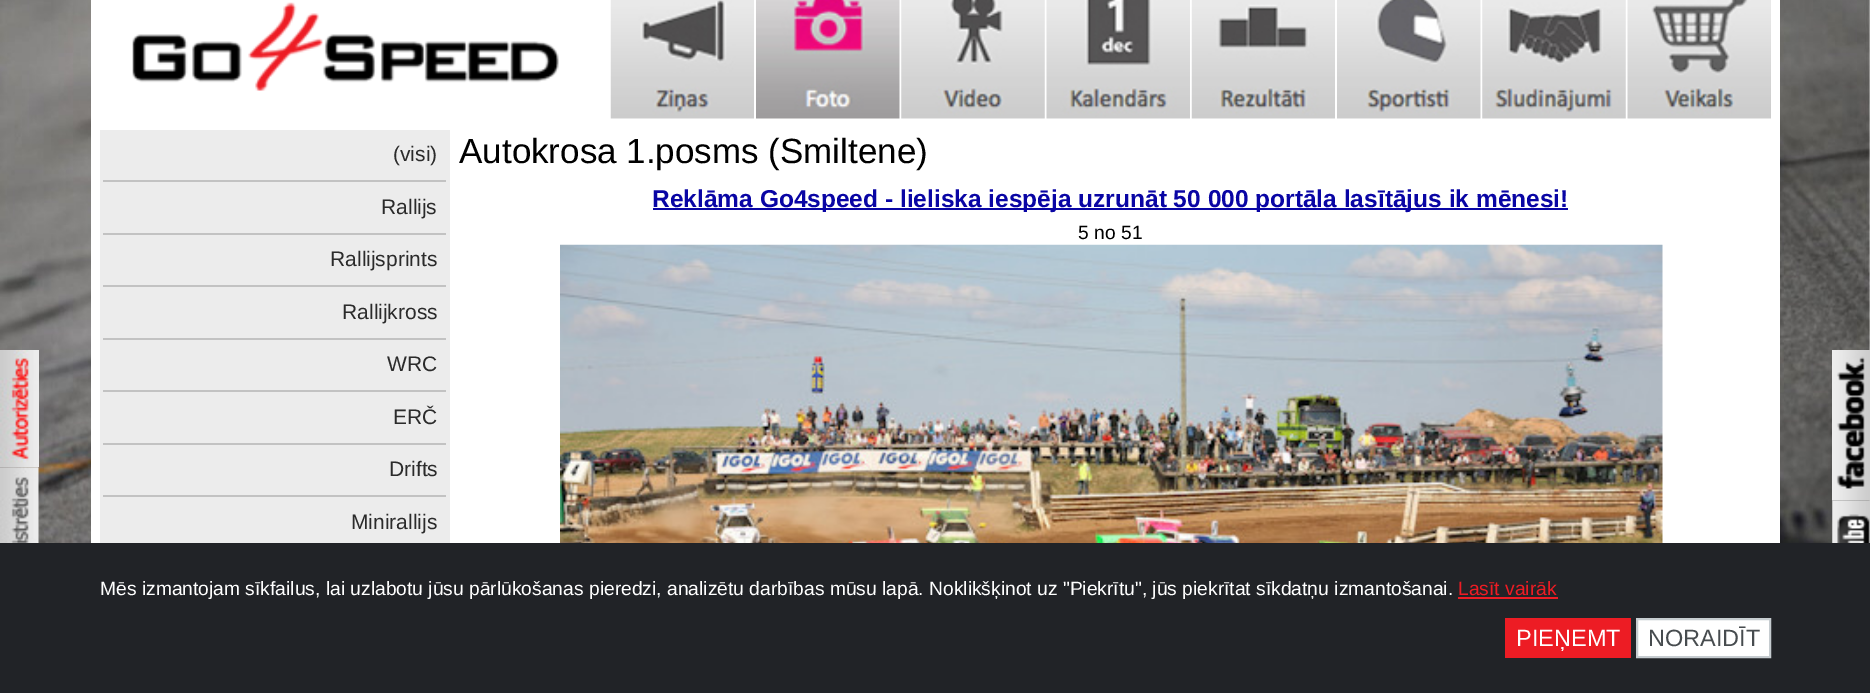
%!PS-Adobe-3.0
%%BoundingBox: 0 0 1870 693
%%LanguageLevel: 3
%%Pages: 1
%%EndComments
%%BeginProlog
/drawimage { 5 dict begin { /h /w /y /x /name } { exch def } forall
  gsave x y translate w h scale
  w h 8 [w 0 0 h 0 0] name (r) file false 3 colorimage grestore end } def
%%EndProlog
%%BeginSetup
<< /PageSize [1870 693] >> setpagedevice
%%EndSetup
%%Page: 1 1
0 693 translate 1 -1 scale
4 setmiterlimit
1 setgray
0 0 1870 693 rectfill
(images/1.raw) 0 0 1870 543 drawimage
(images/2.raw) 0 350 39 117 drawimage
(images/3.raw) 0 467 39 76 drawimage
91 0 1689 543 rectfill
(images/4.raw) 132 2 427 89 drawimage
(images/5.raw) 610 0 144 119 drawimage
(images/6.raw) 756 0 144 119 drawimage
(images/7.raw) 901 0 144 119 drawimage
(images/8.raw) 1046 0 144 119 drawimage
(images/9.raw) 1191 0 144 119 drawimage
(images/10.raw) 1337 0 144 119 drawimage
(images/11.raw) 1482 0 144 119 drawimage
(images/12.raw) 1627 0 144 119 drawimage
0.925 setgray
100 130 350 413 rectfill
0.761 setgray
103 180 343 2 rectfill
103 233 343 2 rectfill
103 285 343 2 rectfill
103 338 343 2 rectfill
103 390 343 2 rectfill
103 443 343 2 rectfill
103 495 343 2 rectfill
0.035 0.02 0.643 setrgbcolor
653 208 915 2 rectfill
(images/13.raw) 560 244 1103 299 drawimage
(images/14.raw) 1832 350 38 151 drawimage
(images/15.raw) 1832 500 38 43 drawimage
0.129 0.137 0.153 setrgbcolor
0 543 1870 150 rectfill
0.929 0.11 0.141 setrgbcolor
1458 597 100 2 rectfill
1505 618 126 40 rectfill
1 setgray
newpath 1637 619 moveto 1770 619 lineto 1770 657 lineto 1637 657 lineto closepath gsave fill grestore
0.776 0.8 0.816 setrgbcolor
2 setlinewidth
stroke
/LiberationSans-Regular [21 0 0 -21 0 0] selectfont
0.169 setgray
393 161 moveto (\(visi\)) show
381 214 moveto (Rallijs) show
330 266 moveto (Rallijsprints) show
342 319 moveto (Rallijkross) show
387 371 moveto (WRC) show
393 424 moveto (ERČ) show
389 476 moveto (Drifts) show
351 529 moveto (Minirallijs) show
/LiberationSans-Regular [35 0 0 -35 0 0] selectfont
0 setgray
459 163 moveto (Autokrosa 1.posms \(Smiltene\)) show
/LiberationSans-Bold [24.5 0 0 -24.5 0 0] selectfont
0.035 0.02 0.643 setrgbcolor
652 207 moveto (Reklāma Go4speed - lieliska iespēja uzrunāt 50 000 portāla lasītājus ik mēnesi!) show
/LiberationSans-Regular [19.25 0 0 -19.25 0 0] selectfont
0 setgray
1078 239 moveto (5 no 51) show
1 setgray
100 595 moveto (Mēs izmantojam sīkfailus, lai uzlabotu jūsu pārlūkošanas pieredzi, analizētu darbības mūsu lapā. Noklikšķinot uz "Piekrītu", jūs piekrītat sīkdatņu izmantošanai.) show
0.929 0.11 0.141 setrgbcolor
1458 595 moveto (Lasīt vairāk) show
/LiberationSans-Regular [23.5 0 0 -23.5 0 0] selectfont
1 setgray
1516 646 moveto (PIEŅEMT) show
0.278 0.298 0.31 setrgbcolor
1648 646 moveto (NORAIDĪT) show
showpage
%%EOF
